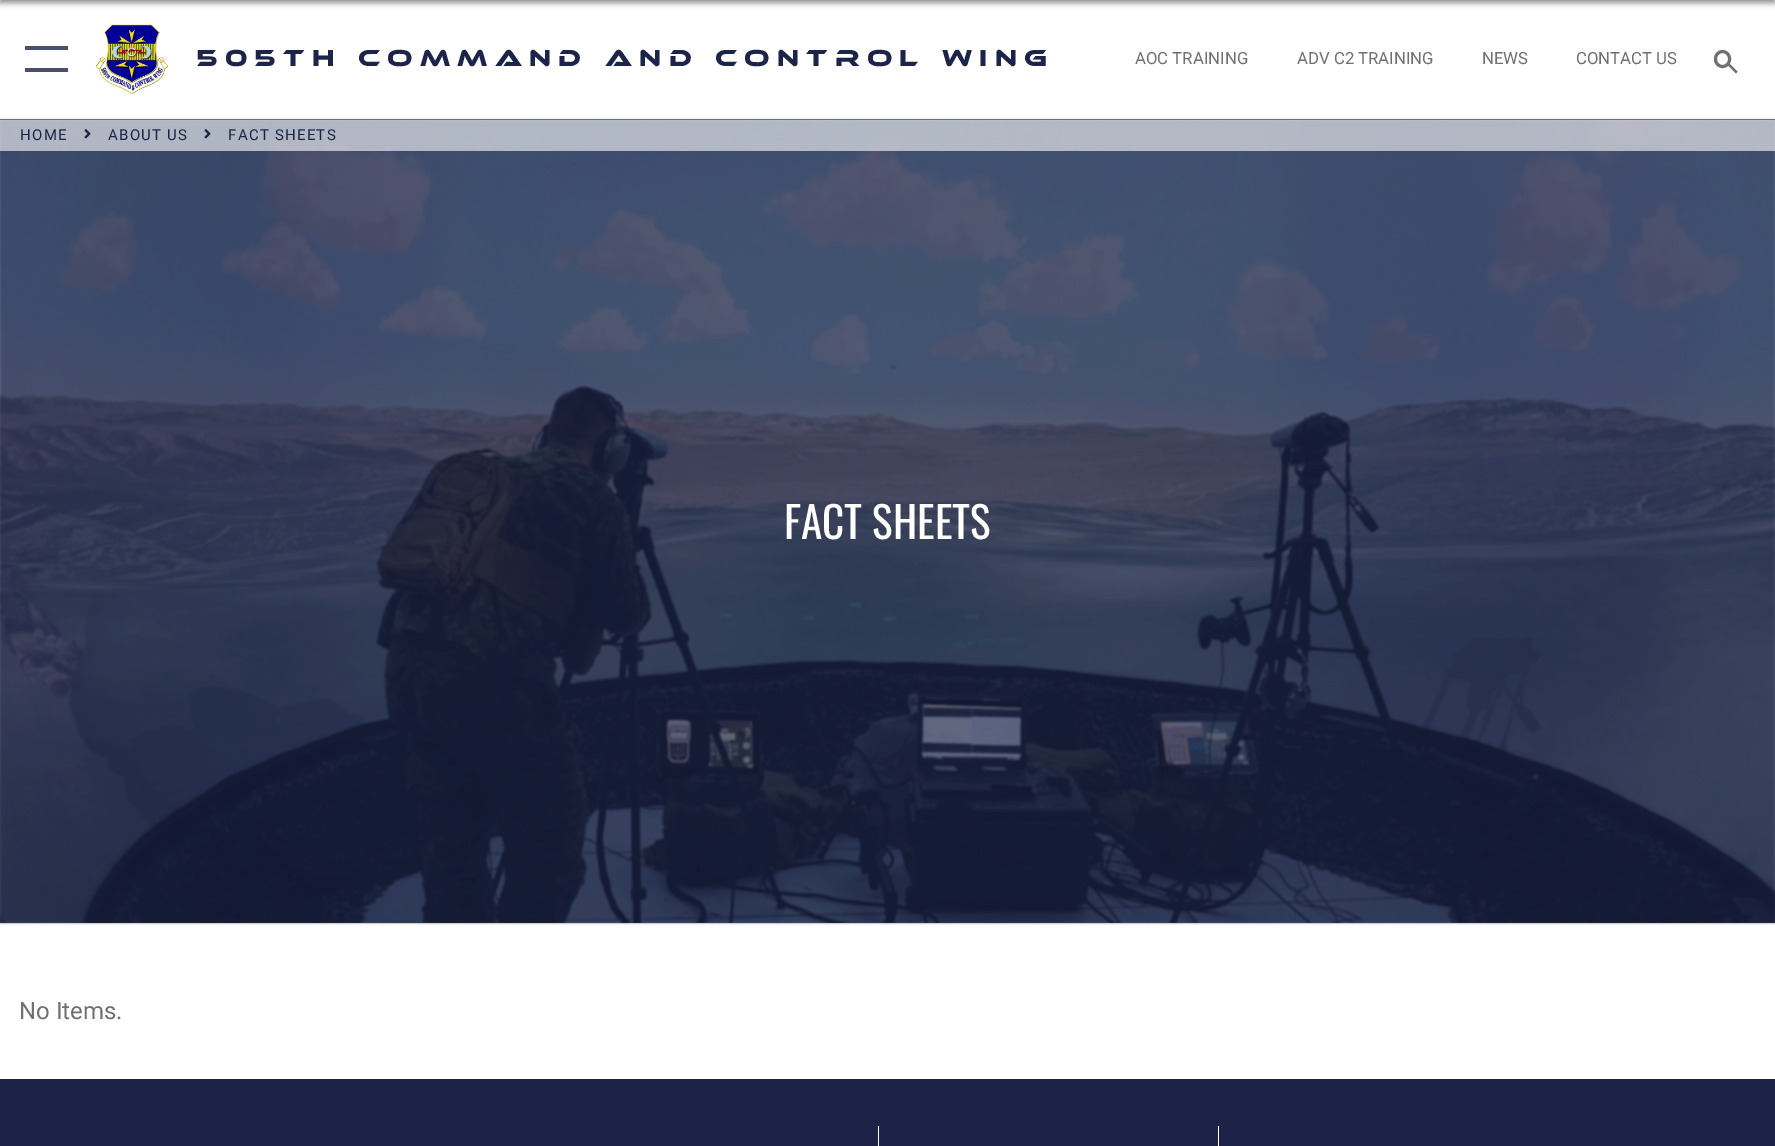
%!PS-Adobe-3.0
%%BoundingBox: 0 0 1775 1146
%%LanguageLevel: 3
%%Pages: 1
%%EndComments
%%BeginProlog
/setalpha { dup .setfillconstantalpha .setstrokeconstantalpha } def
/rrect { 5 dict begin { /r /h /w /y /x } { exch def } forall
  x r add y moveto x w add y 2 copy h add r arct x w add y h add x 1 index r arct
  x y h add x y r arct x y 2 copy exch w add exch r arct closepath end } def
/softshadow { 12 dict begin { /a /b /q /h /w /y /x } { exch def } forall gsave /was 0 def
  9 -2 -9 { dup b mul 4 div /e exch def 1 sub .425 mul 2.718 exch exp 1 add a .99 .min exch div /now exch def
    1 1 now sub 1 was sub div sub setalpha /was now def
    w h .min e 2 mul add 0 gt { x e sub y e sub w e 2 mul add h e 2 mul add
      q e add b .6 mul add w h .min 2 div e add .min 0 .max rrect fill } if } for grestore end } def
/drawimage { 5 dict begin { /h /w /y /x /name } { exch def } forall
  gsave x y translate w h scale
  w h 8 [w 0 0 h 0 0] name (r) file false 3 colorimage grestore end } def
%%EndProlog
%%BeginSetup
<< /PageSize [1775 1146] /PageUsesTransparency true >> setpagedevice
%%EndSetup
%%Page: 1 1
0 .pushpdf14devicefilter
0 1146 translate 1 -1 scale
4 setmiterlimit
1 setgray
0 0 1775 1146 rectfill
0.102 setgray
0 -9 1775 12 0 3 0.5 softshadow
0.29 0.31 0.424 setrgbcolor
0 120 1775 803 rectfill
(images/4.raw) 0 120 1775 803 drawimage
0.11 0.137 0.278 setrgbcolor
0 120 1775 803 0 1 0.7 softshadow
0.439 setgray
0 119 1775 1 rectfill
0.286 0.314 0.427 setrgbcolor
25 46 43 4 0.5 rrect fill
25 68 43 4 0.5 rrect fill
(images/1.raw) 95 24 74 71 drawimage
0.439 setgray
3 setlinewidth
1715.5 51.5 14 15 7 rrect stroke
newpath 1728.5 62.5 moveto 1737.5 71.5 lineto 1736 73.5 lineto 1727 64.5 lineto closepath fill
0.6 setalpha
1 setgray
0 120 1775 31 rectfill
1 setalpha
(images/2.raw) 84 129 7 10 drawimage
(images/3.raw) 204 129 7 10 drawimage
0.11 0.137 0.278 setrgbcolor
0 1079 1775 67 rectfill
1 setgray
1218 1126 1 20 rectfill
878 1126 1 20 rectfill
/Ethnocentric-Regular [24 0 0 -24 0 0] selectfont
0.11 0.141 0.286 setrgbcolor
196 66 moveto 7.2 0 (505th Command and Control Wing) ashow
/Roboto-Regular [16.75 0 0 -16.75 0 0] selectfont
0.439 setgray
1135 64 moveto (AOC TRAINING) show
1297 64 moveto (ADV C2 TRAINING) show
1482 64 moveto (NEWS) show
1576 64 moveto (CONTACT US) show
/Roboto-Regular [15 0 0 -15 0 0] selectfont
0.11 0.141 0.286 setrgbcolor
20 140 moveto 1.25 0 (HOME) ashow
108 140 moveto 1.25 0 (ABOUT US) ashow
228 140 moveto 1.25 0 (FACT SHEETS) ashow
/Oswald-Regular [43.25 0 0 -43.25 0 0] selectfont
1 setgray
784 539 moveto (FACT SHEETS) show
/Roboto-Regular [24 0 0 -24 0 0] selectfont
0.439 setgray
19 1019 moveto (No Items.) show
.poppdf14devicefilter showpage
%%EOF
